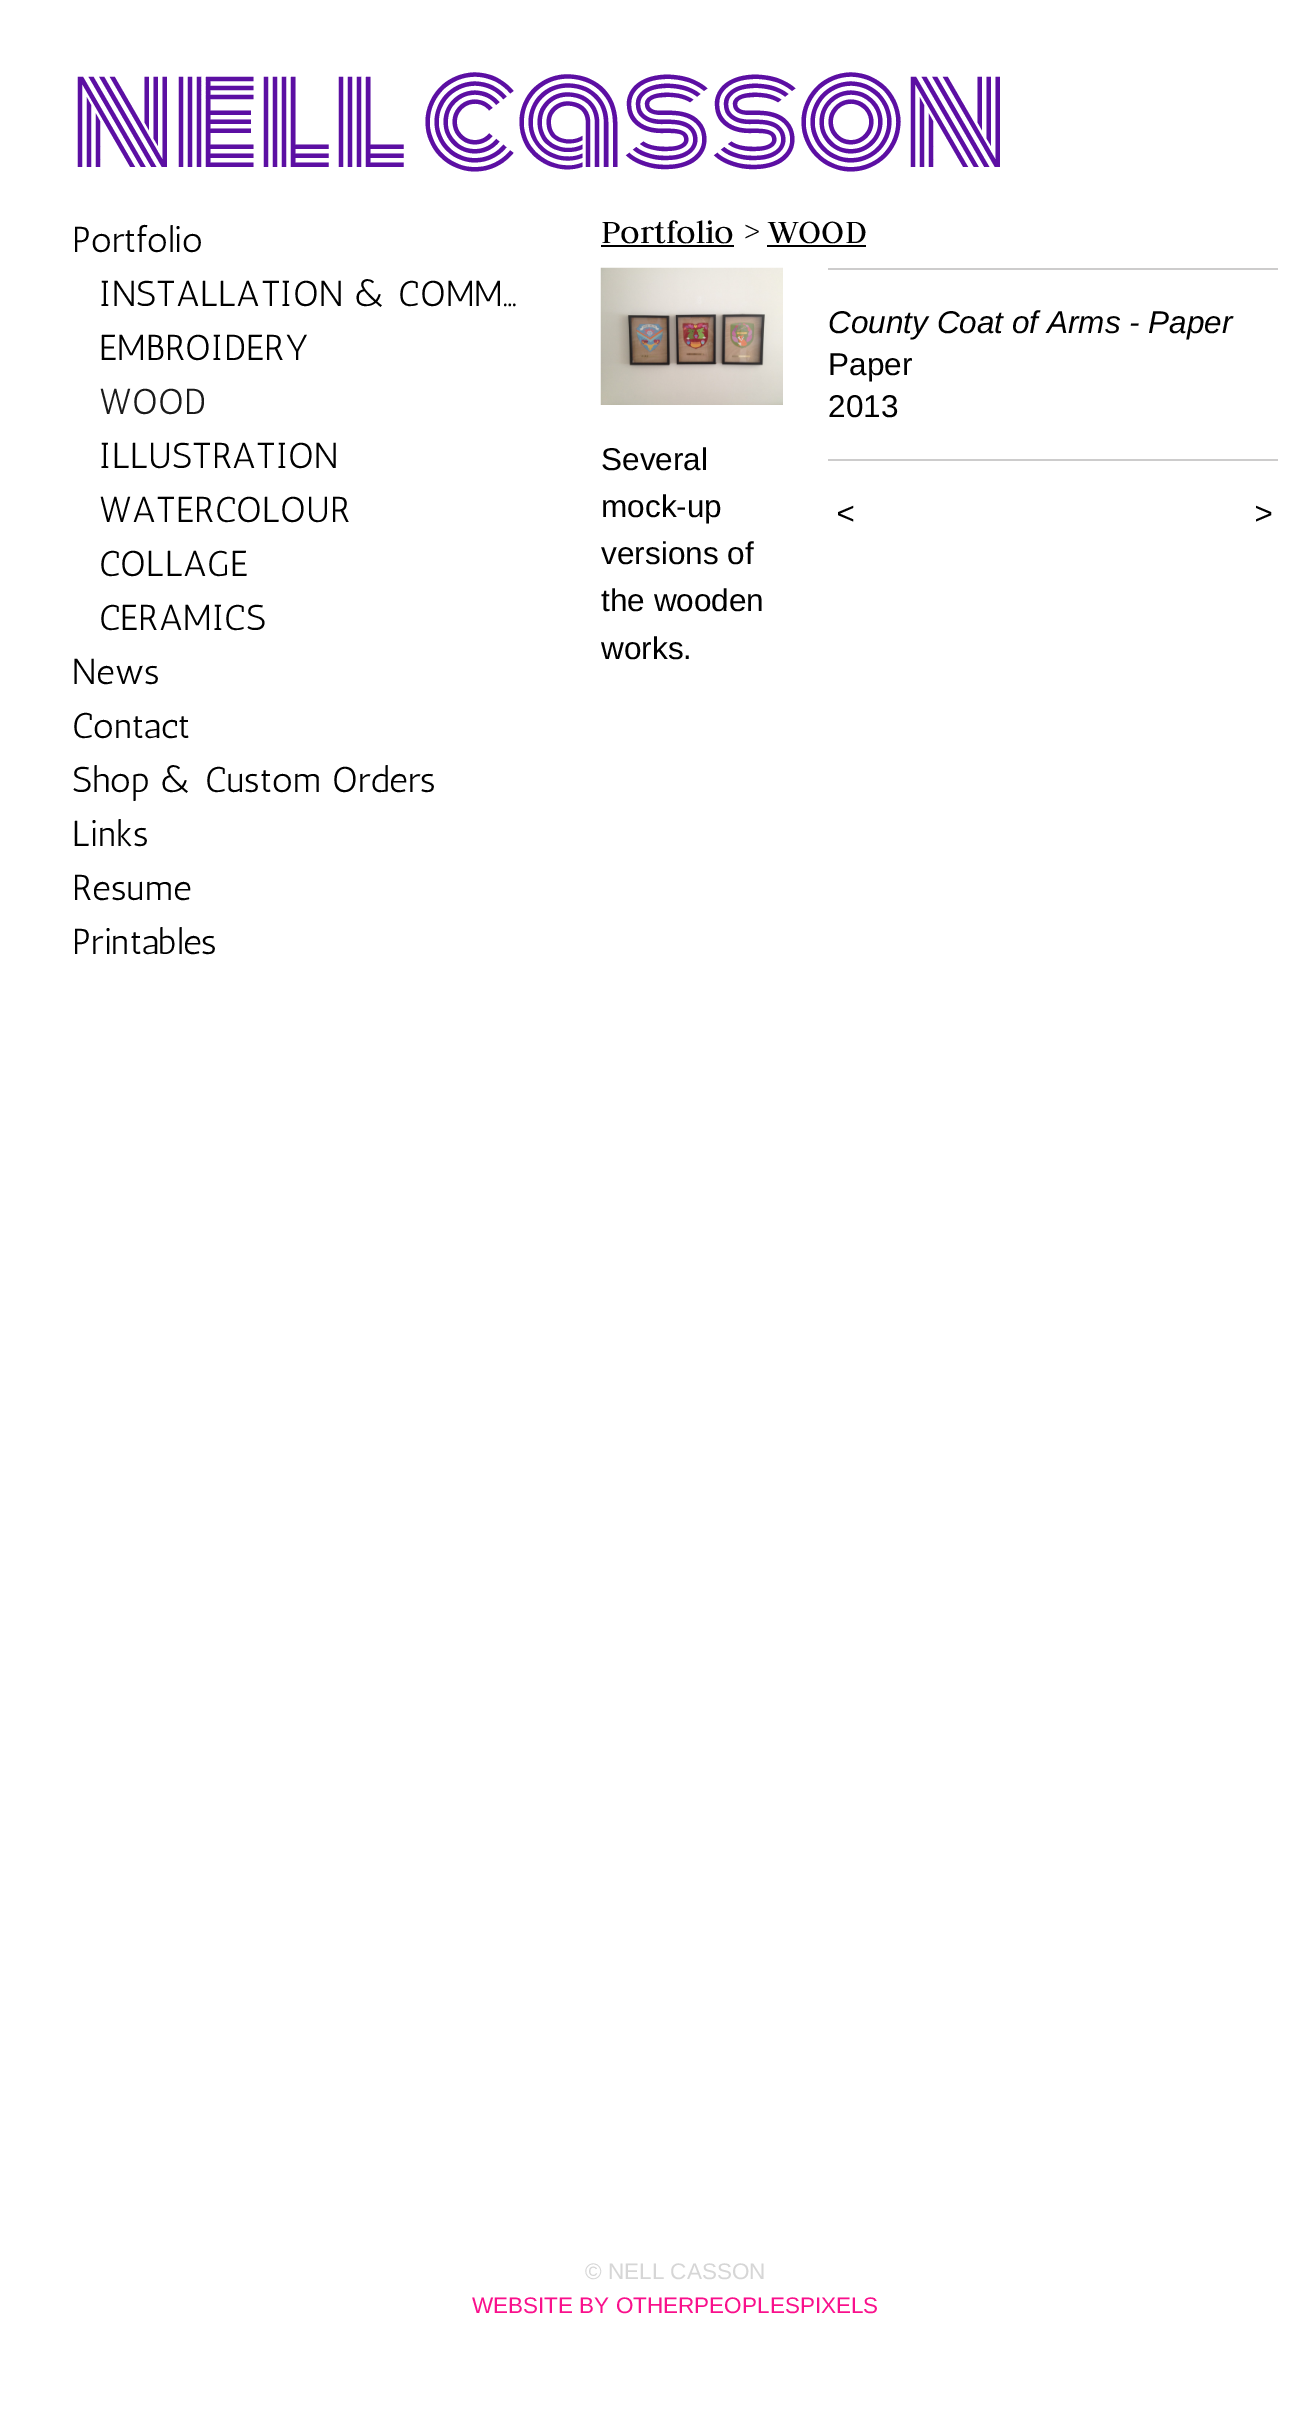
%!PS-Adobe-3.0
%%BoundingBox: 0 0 1316 2434
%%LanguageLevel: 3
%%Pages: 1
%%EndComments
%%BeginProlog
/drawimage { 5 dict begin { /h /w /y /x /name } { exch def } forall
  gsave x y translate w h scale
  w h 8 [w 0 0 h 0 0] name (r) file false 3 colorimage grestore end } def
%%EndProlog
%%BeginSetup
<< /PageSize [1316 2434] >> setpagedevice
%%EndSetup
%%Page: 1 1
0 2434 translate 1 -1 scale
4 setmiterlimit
1 setgray
0 0 1316 2434 rectfill
0 setgray
601 245 133 2 rectfill
767 245 99 2 rectfill
(images/1.raw) 600 267 183 138 drawimage
0.804 0.8 0.8 setrgbcolor
828 268 450 2 rectfill
828 459 450 2 rectfill
/Monoton-Regular [128.25 0 0 -128.25 0 0] selectfont
0.361 0.059 0.639 setrgbcolor
72 167 moveto (nell casson) show
/Antic-Regular [36 0 0 -36 0 0] selectfont
0 setgray
72 252 moveto (Portfolio) show
99 306 moveto (INSTALLATION & COMM…) show
99 360 moveto (EMBROIDERY) show
0.102 setgray
99 414 moveto (WOOD) show
0 setgray
99 468 moveto (ILLUSTRATION) show
99 522 moveto (WATERCOLOUR) show
99 576 moveto (COLLAGE) show
99 630 moveto (CERAMICS) show
72 684 moveto (News) show
72 738 moveto (Contact) show
72 792 moveto (Shop & Custom Orders) show
72 846 moveto (Links) show
72 900 moveto (Resume) show
72 954 moveto (Printables) show
/Judson-Regular [36 0 0 -36 0 0] selectfont
601 243 moveto (Portfolio > WOOD) show
/LiberationSans-Italic [31.5 0 0 -31.5 0 0] selectfont
828 333 moveto (County Coat of Arms - Paper) show
/LiberationSans-Regular [31.5 0 0 -31.5 0 0] selectfont
828 375 moveto (Paper) show
828 417 moveto (2013) show
/LiberationSans-Italic [31.5 0 0 -31.5 0 0] selectfont
836 524 moveto 2 0 (<) ashow
1254 524 moveto 2 0 (>) ashow
/LiberationSans-Regular [31.5 0 0 -31.5 0 0] selectfont
601 470 moveto (Several) show
601 517 moveto (mock-up) show
601 564 moveto (versions of) show
601 611 moveto (the wooden) show
601 659 moveto (works.) show
/LiberationSans-Regular [22.5 0 0 -22.5 0 0] selectfont
0.839 setgray
585 2279 moveto (© NELL CASSON) show
0.976 0.063 0.549 setrgbcolor
472 2313 moveto (WEBSITE BY OTHERPEOPLESPIXELS) show
showpage
%%EOF
